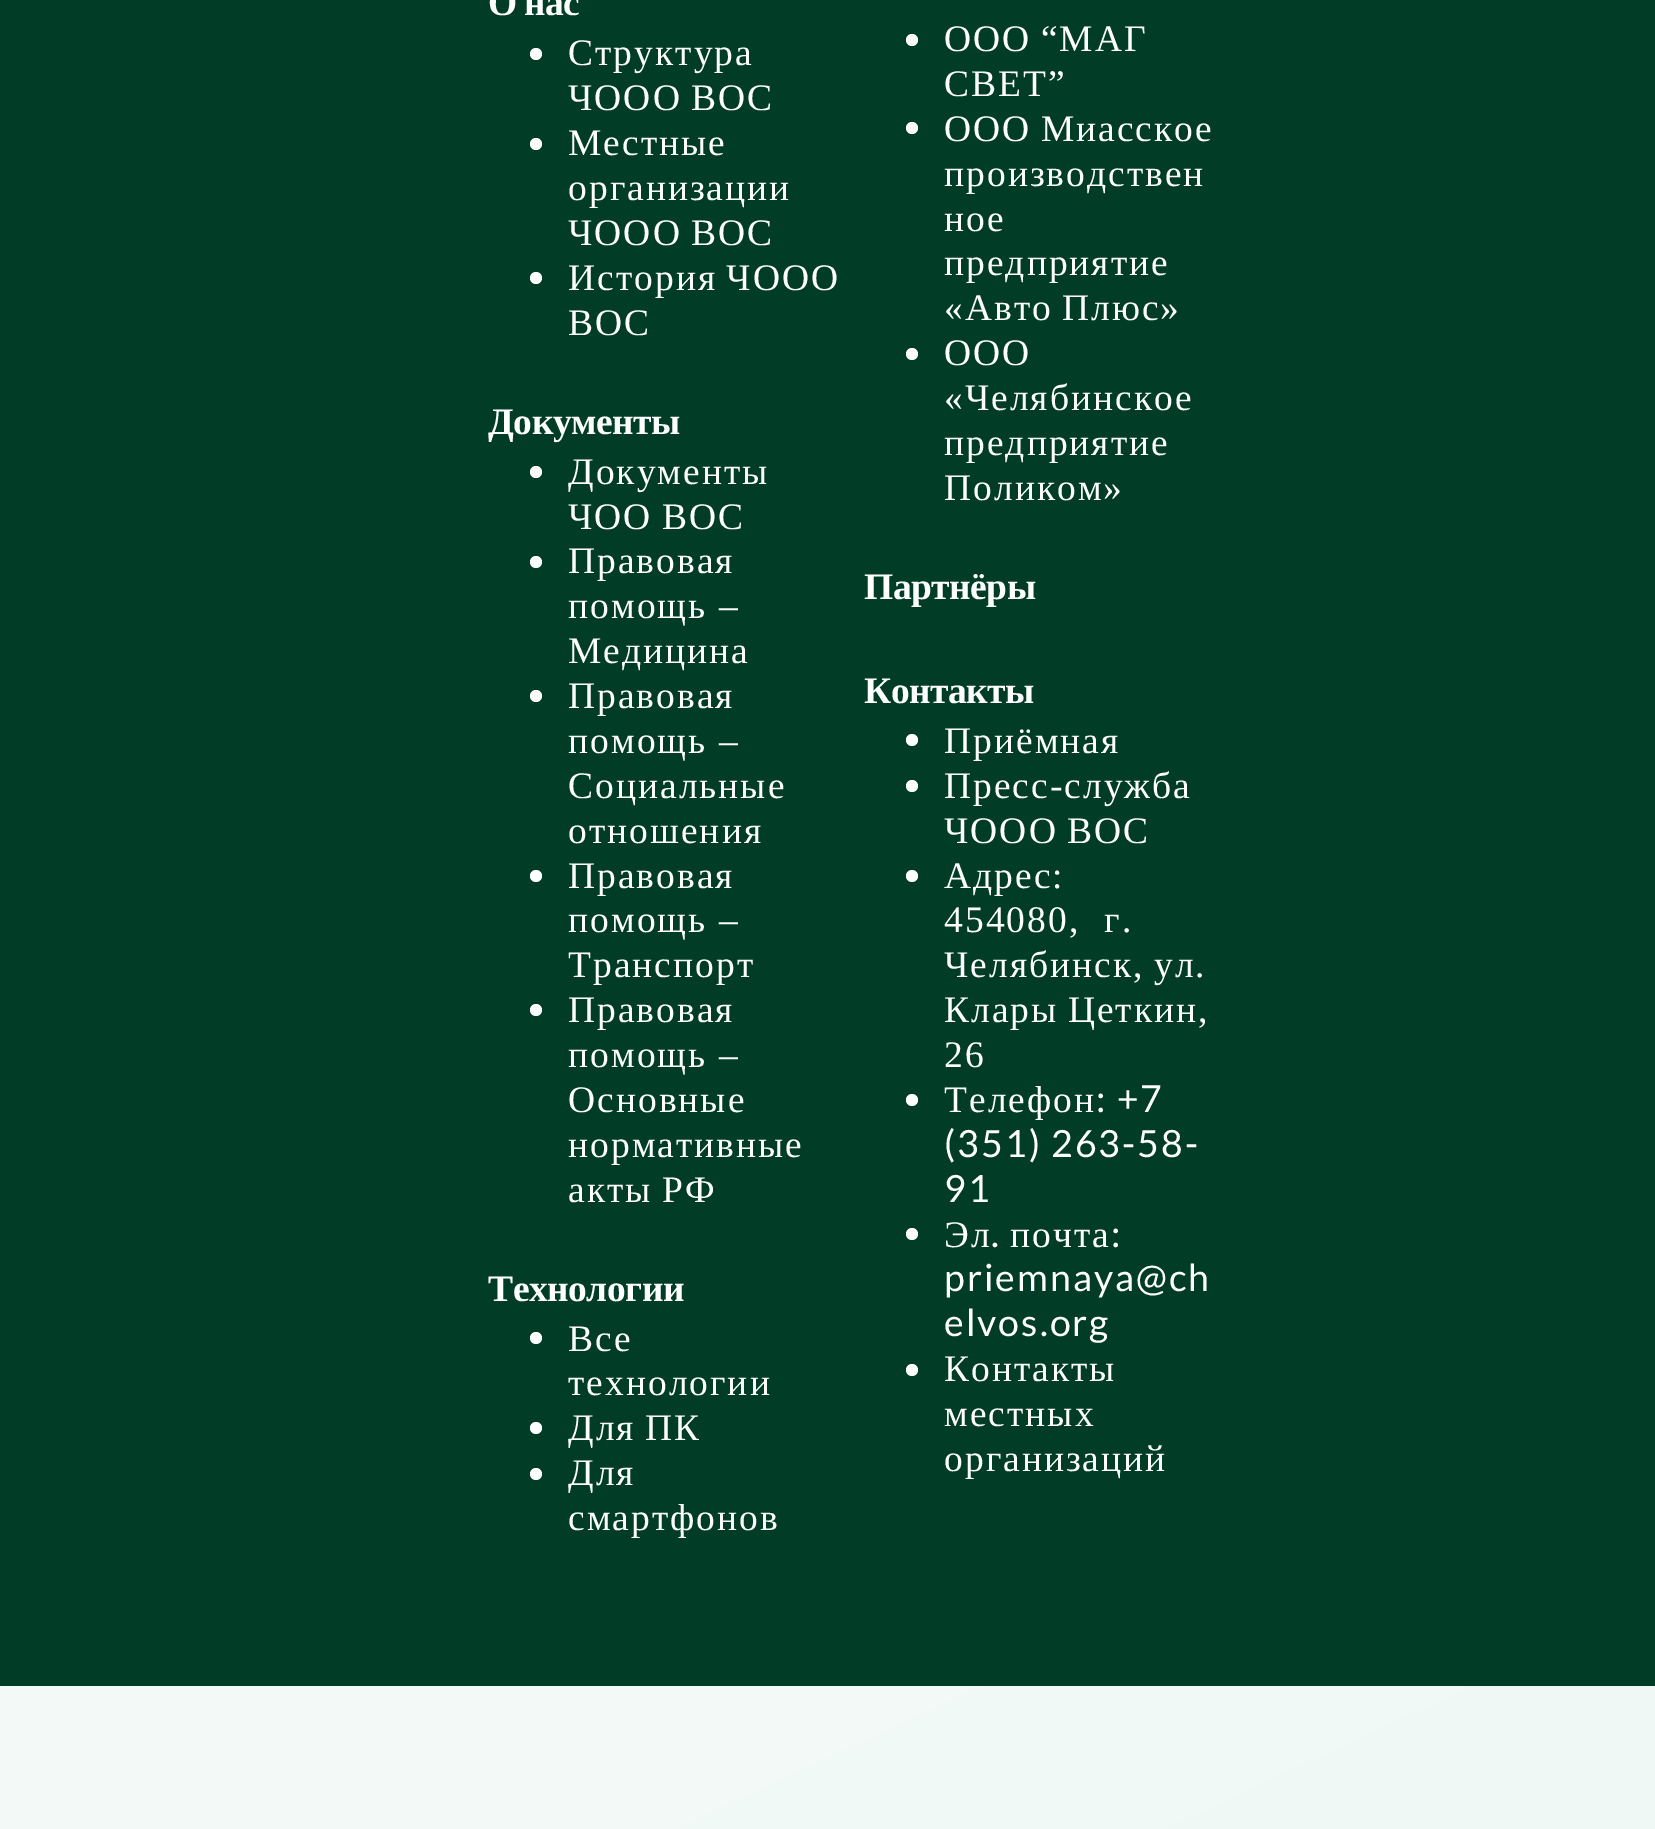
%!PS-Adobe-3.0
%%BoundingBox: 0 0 1655 1829
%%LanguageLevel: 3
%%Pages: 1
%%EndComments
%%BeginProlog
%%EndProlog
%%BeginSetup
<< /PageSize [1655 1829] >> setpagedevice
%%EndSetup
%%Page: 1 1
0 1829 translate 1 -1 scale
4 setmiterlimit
1 setgray
0 0 1655 1829 rectfill
gsave newpath 0 1686 moveto 1655 1686 lineto 1655 1829 lineto 0 1829 lineto closepath clip newpath
<< /ShadingType 2 /ColorSpace /DeviceRGB /Coords [-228 -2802 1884 1726] /Extend [true true] /Function << /FunctionType 2 /Domain [0 1] /C0 [1 1 1] /C1 [0.941 0.973 0.961] /N 1 >> >> shfill grestore
0.004 0.239 0.149 setrgbcolor
0 0 1655 1686 rectfill
1 setgray
newpath 536 54 6 0 360 arc closepath fill
newpath 536 144 6 0 360 arc closepath fill
newpath 536 278 6 0 360 arc closepath fill
newpath 536 472 6 0 360 arc closepath fill
newpath 536 562 6 0 360 arc closepath fill
newpath 536 696 6 0 360 arc closepath fill
newpath 536 876 6 0 360 arc closepath fill
newpath 536 1010 6 0 360 arc closepath fill
newpath 536 1338 6 0 360 arc closepath fill
newpath 536 1428 6 0 360 arc closepath fill
newpath 536 1474 6 0 360 arc closepath fill
newpath 912 40 6 0 360 arc closepath fill
newpath 912 128 6 0 360 arc closepath fill
newpath 912 354 6 0 360 arc closepath fill
newpath 912 740 6 0 360 arc closepath fill
newpath 912 786 6 0 360 arc closepath fill
newpath 912 876 6 0 360 arc closepath fill
newpath 912 1100 6 0 360 arc closepath fill
newpath 912 1234 6 0 360 arc closepath fill
newpath 912 1370 6 0 360 arc closepath fill
/LiberationSerif-Bold [37.5 0 0 -37.5 0 0] selectfont
488 15 moveto -2 0 32 -0.5 0 (О нас) awidthshow
/LiberationSerif-Regular [37.5 0 0 -37.5 0 0] selectfont
568 65 moveto 2 0 (Структура) ashow
568 110 moveto -2 0 32 2 0 (ЧООО ВОС) awidthshow
568 155 moveto 2 0 (Местные) ashow
568 200 moveto 2 0 (организации) ashow
568 245 moveto -2 0 32 2 0 (ЧООО ВОС) awidthshow
568 290 moveto -2 0 32 2 0 (История ЧООО) awidthshow
568 335 moveto 2 0 (ВОС) ashow
/LiberationSerif-Bold [37.5 0 0 -37.5 0 0] selectfont
488 434 moveto -0.5 0 (Документы) ashow
/LiberationSerif-Regular [37.5 0 0 -37.5 0 0] selectfont
568 484 moveto 2 0 (Документы) ashow
568 529 moveto -2 0 32 2 0 (ЧОО ВОС) awidthshow
568 573 moveto 2 0 (Правовая) ashow
568 618 moveto 2 0 (помощь –) ashow
568 663 moveto 2 0 (Медицина) ashow
568 708 moveto 2 0 (Правовая) ashow
568 753 moveto 2 0 (помощь –) ashow
568 798 moveto 2 0 (Социальные) ashow
568 843 moveto 2 0 (отношения) ashow
568 888 moveto 2 0 (Правовая) ashow
568 932 moveto 2 0 (помощь –) ashow
568 977 moveto 2 0 (Транспорт) ashow
568 1022 moveto 2 0 (Правовая) ashow
568 1067 moveto 2 0 (помощь –) ashow
568 1112 moveto 2 0 (Основные) ashow
568 1157 moveto 2 0 (нормативные) ashow
568 1202 moveto -2 0 32 2 0 (акты РФ) awidthshow
/LiberationSerif-Bold [37.5 0 0 -37.5 0 0] selectfont
488 1301 moveto -0.5 0 (Технологии) ashow
/LiberationSerif-Regular [37.5 0 0 -37.5 0 0] selectfont
568 1351 moveto 2 0 (Все) ashow
568 1395 moveto 2 0 (технологии) ashow
568 1440 moveto -2 0 32 2 0 (Для ПК) awidthshow
568 1485 moveto 2 0 (Для) ashow
568 1530 moveto 2 0 (смартфонов) ashow
944 51 moveto -2 0 32 2 0 (ООО “МАГ) awidthshow
944 96 moveto 2 0 (СВЕТ”) ashow
944 141 moveto -2 0 32 2 0 (ООО Миасское) awidthshow
944 186 moveto 2 0 (производствен) ashow
944 231 moveto 2 0 (ное) ashow
944 275 moveto 2 0 (предприятие) ashow
944 320 moveto -2 0 32 2 0 («Авто Плюс») awidthshow
944 365 moveto 2 0 (ООО) ashow
944 410 moveto 2 0 («Челябинское) ashow
944 455 moveto 2 0 (предприятие) ashow
944 500 moveto 2 0 (Поликом») ashow
/LiberationSerif-Bold [37.5 0 0 -37.5 0 0] selectfont
864 599 moveto -0.5 0 (Партнёры) ashow
864 703 moveto -0.5 0 (Контакты) ashow
/LiberationSerif-Regular [37.5 0 0 -37.5 0 0] selectfont
944 753 moveto 2 0 (Приёмная) ashow
944 798 moveto 2 0 (Пресс-служба) ashow
944 843 moveto -2 0 32 2 0 (ЧООО ВОС) awidthshow
944 888 moveto 2 0 (Адрес:) ashow
944 932 moveto 13 0 32 2 0 (454080, г.) awidthshow
944 977 moveto -2 0 32 2 0 (Челябинск, ул.) awidthshow
944 1022 moveto -2 0 32 2 0 (Клары Цеткин,) awidthshow
944 1067 moveto 2 0 (26) ashow
944 1112 moveto 2 0 (Телефон) ashow
/Lato-Regular [37.5 0 0 -37.5 0 0] selectfont
1096 1112 moveto 2 0 (: +7) ashow
944 1157 moveto 2 0 (\(351\) 263-58-) ashow
944 1202 moveto 2 0 (91) ashow
/LiberationSerif-Regular [37.5 0 0 -37.5 0 0] selectfont
944 1247 moveto 2 0 (Эл) ashow
/Lato-Regular [37.5 0 0 -37.5 0 0] selectfont
991 1247 moveto 2 0 (.) ashow
/LiberationSerif-Regular [37.5 0 0 -37.5 0 0] selectfont
1010 1247 moveto 2 0 (почта) ashow
/Lato-Regular [37.5 0 0 -37.5 0 0] selectfont
1111 1247 moveto 2 0 (:) ashow
944 1291 moveto 2 0 (priemnaya@ch) ashow
944 1336 moveto 2 0 (elvos.org) ashow
/LiberationSerif-Regular [37.5 0 0 -37.5 0 0] selectfont
944 1381 moveto 2 0 (Контакты) ashow
944 1426 moveto 2 0 (местных) ashow
944 1471 moveto 2 0 (организаций) ashow
showpage
%%EOF
